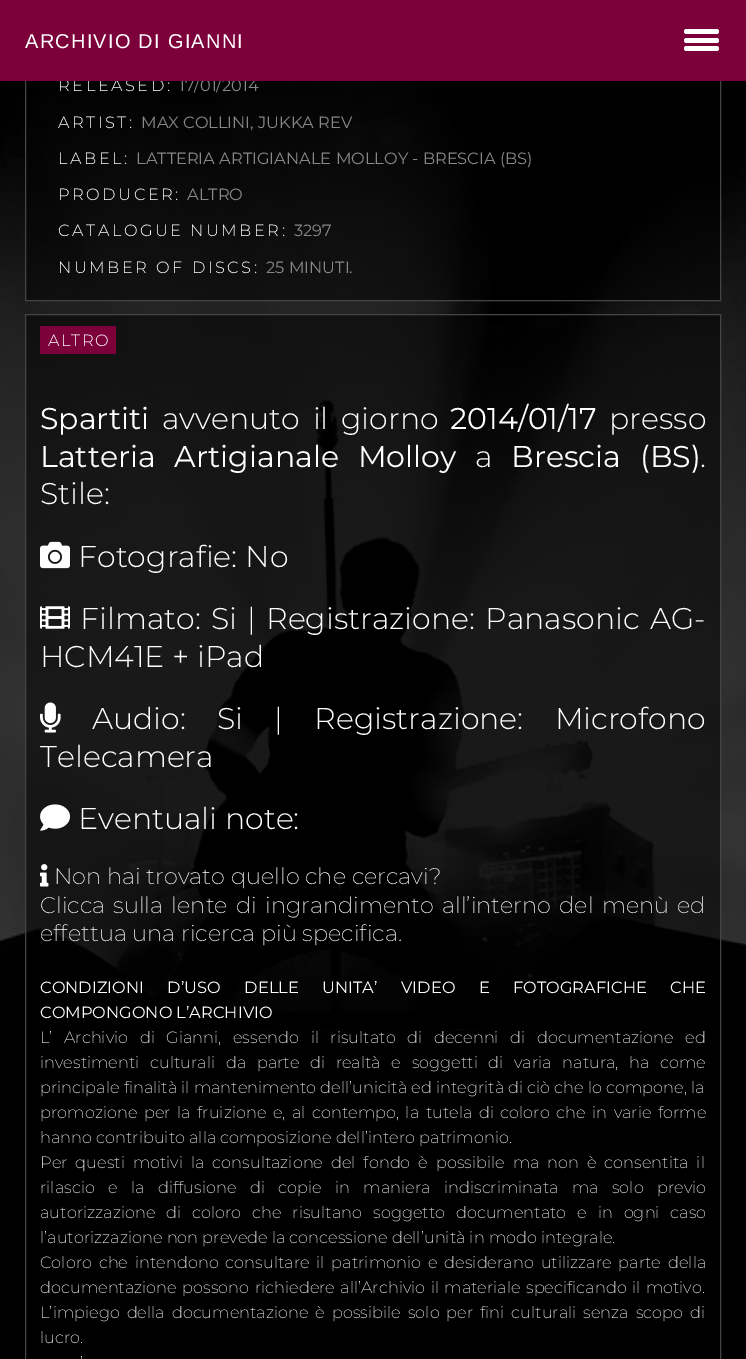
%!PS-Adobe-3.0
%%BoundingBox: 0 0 746 1359
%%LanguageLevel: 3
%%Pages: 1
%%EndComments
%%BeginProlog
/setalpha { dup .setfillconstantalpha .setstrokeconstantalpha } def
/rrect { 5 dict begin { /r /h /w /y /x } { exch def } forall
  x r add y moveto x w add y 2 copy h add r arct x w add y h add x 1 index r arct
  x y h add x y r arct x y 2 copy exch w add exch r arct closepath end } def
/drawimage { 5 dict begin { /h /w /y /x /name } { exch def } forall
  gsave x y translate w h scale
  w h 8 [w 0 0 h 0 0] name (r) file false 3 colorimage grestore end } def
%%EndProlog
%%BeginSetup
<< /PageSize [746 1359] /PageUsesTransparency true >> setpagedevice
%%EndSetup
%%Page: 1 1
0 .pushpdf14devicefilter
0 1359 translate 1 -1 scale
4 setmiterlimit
1 setgray
0 0 746 1359 rectfill
(images/6.raw) 0 81 746 1278 drawimage
0.5 setalpha
0 setgray
26 81 694 219 rectfill
1 setalpha
0.263 0.271 0.263 setrgbcolor
25.5 44.5 695 256 rectstroke
0.5 setalpha
0 setgray
26 315 694 715 rectfill
1 setalpha
0.263 0.271 0.263 setrgbcolor
25.5 314.5 695 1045 rectstroke
0.486 0 0.227 setrgbcolor
40 326 76 28 rectfill
(images/1.raw) 40 541 30 28 drawimage
(images/2.raw) 40 606 30 23 drawimage
(images/3.raw) 40 702 21 31 drawimage
(images/4.raw) 40 804 31 27 drawimage
(images/5.raw) 40 864 9 23 drawimage
/Montserrat-Light [16.25 0 0 -16.25 0 0] selectfont
1 setgray
58 91 moveto 2.5 0 (RELEASED:) ashow
/Montserrat-Regular [16.25 0 0 -16.25 0 0] selectfont
0.533 setgray
179 91 moveto (17/01/2014) show
0.486 0 0.227 setrgbcolor
0 0 746 81 rectfill
1 setgray
684 46 35 5 2.5 rrect fill
684 38 35 5 2.5 rrect fill
684 29 35 5 2.5 rrect fill
/LiberationSans-Regular [20 0 0 -20 0 0] selectfont
25 48 moveto 1.25 0 (ARCHIVIO DI GIANNI) ashow
/Montserrat-Light [16.25 0 0 -16.25 0 0] selectfont
58 128 moveto 2.5 0 (ARTIST:) ashow
/Montserrat-Regular [16.25 0 0 -16.25 0 0] selectfont
0.533 setgray
141 128 moveto (MAX COLLINI, JUKKA REV) show
/Montserrat-Light [16.25 0 0 -16.25 0 0] selectfont
1 setgray
58 164 moveto 2.5 0 (LABEL:) ashow
/Montserrat-Regular [16.25 0 0 -16.25 0 0] selectfont
0.533 setgray
136 164 moveto (LATTERIA ARTIGIANALE MOLLOY - BRESCIA \(BS\)) show
/Montserrat-Light [16.25 0 0 -16.25 0 0] selectfont
1 setgray
58 200 moveto 2.5 0 (PRODUCER:) ashow
/Montserrat-Regular [16.25 0 0 -16.25 0 0] selectfont
0.533 setgray
187 200 moveto (ALTRO) show
/Montserrat-Light [16.25 0 0 -16.25 0 0] selectfont
1 setgray
58 236 moveto 2.5 0 (CATALOGUE NUMBER:) ashow
/Montserrat-Regular [16.25 0 0 -16.25 0 0] selectfont
0.533 setgray
294 236 moveto (3297) show
/Montserrat-Light [16.25 0 0 -16.25 0 0] selectfont
1 setgray
58 273 moveto 2.5 0 (NUMBER OF DISCS:) ashow
/Montserrat-Regular [16.25 0 0 -16.25 0 0] selectfont
0.533 setgray
266 273 moveto (25 MINUTI.) show
/Montserrat-Light [16.25 0 0 -16.25 0 0] selectfont
1 setgray
48 346 moveto 1.25 0 (ALTRO) ashow
/Montserrat-Regular [30 0 0 -30 0 0] selectfont
40 429 moveto (Spartiti) show
/Montserrat-Light [30 0 0 -30 0 0] selectfont
162 429 moveto 5 0 32 (avvenuto il giorno) widthshow
/Montserrat-Regular [30 0 0 -30 0 0] selectfont
450 429 moveto (2014/01/17) show
/Montserrat-Light [30 0 0 -30 0 0] selectfont
609 429 moveto (presso) show
/Montserrat-Regular [30 0 0 -30 0 0] selectfont
40 467 moveto 11 0 32 (Latteria Artigianale Molloy) widthshow
/Montserrat-Light [30 0 0 -30 0 0] selectfont
475 467 moveto (a) show
/Montserrat-Regular [30 0 0 -30 0 0] selectfont
511 467 moveto 11 0 32 (Brescia \(BS\)) widthshow
/Montserrat-Light [30 0 0 -30 0 0] selectfont
700 467 moveto (.) show
40 504 moveto (Stile:) show
78 567 moveto (Fotografie: No) show
80 629 moveto 2.5 0 32 (Filmato: Si | Registrazione: Panasonic AG-) widthshow
40 667 moveto (HCM41E + iPad) show
92 729 moveto 23.5 0 32 (Audio: Si | Registrazione: Microfono) widthshow
40 767 moveto (Telecamera) show
78 829 moveto (Eventuali note:) show
/Montserrat-ExtraLight [22.5 0 0 -22.5 0 0] selectfont
54 884 moveto (Non hai trovato quello che cercavi?) show
40 913 moveto 2.5 0 32 (Clicca sulla lente di ingrandimento all’interno del menù ed) widthshow
40 941 moveto (effettua una ricerca più specifica.) show
/Montserrat-Regular [16.25 0 0 -16.25 0 0] selectfont
40 993 moveto 19.25 0 32 (CONDIZIONI D’USO DELLE UNITA’ VIDEO E FOTOGRAFICHE CHE) widthshow
40 1018 moveto (COMPONGONO L’ARCHIVIO) show
/Montserrat-ExtraLight [16.25 0 0 -16.25 0 0] selectfont
40 1043 moveto 7.4 0 32 (L’ Archivio di Gianni, essendo il risultato di decenni di documentazione ed) widthshow
40 1068 moveto 6.5 0 32 (investimenti culturali da parte di realtà e soggetti di varia natura, ha come) widthshow
40 1093 moveto (principale finalità il mantenimento dell’unicità ed integrità di ciò che lo compone, la) show
40 1118 moveto 2.4 0 32 (promozione per la fruizione e, al contempo, la tutela di coloro che in varie forme) widthshow
40 1143 moveto (hanno contribuito alla composizione dell’intero patrimonio.) show
40 1168 moveto 3.75 0 32 (Per questi motivi la consultazione del fondo è possibile ma non è consentita il) widthshow
40 1193 moveto 9.25 0 32 (rilascio e la diffusione di copie in maniera indiscriminata ma solo previo) widthshow
40 1218 moveto 6.75 0 32 (autorizzazione di coloro che risultano soggetto documentato e in ogni caso) widthshow
40 1243 moveto (l’autorizzazione non prevede la concessione dell’unità in modo integrale.) show
40 1268 moveto 2.75 0 32 (Coloro che intendono consultare il patrimonio e desiderano utilizzare parte della) widthshow
40 1293 moveto 1.25 0 32 (documentazione possono richiedere all’Archivio il materiale specificando il motivo.) widthshow
40 1318 moveto 2.75 0 32 (L’impiego della documentazione è possibile solo per fini culturali senza scopo di) widthshow
40 1343 moveto (lucro.) show
80 1368 moveto 3.75 0 32 (’) widthshow
.poppdf14devicefilter showpage
%%EOF
